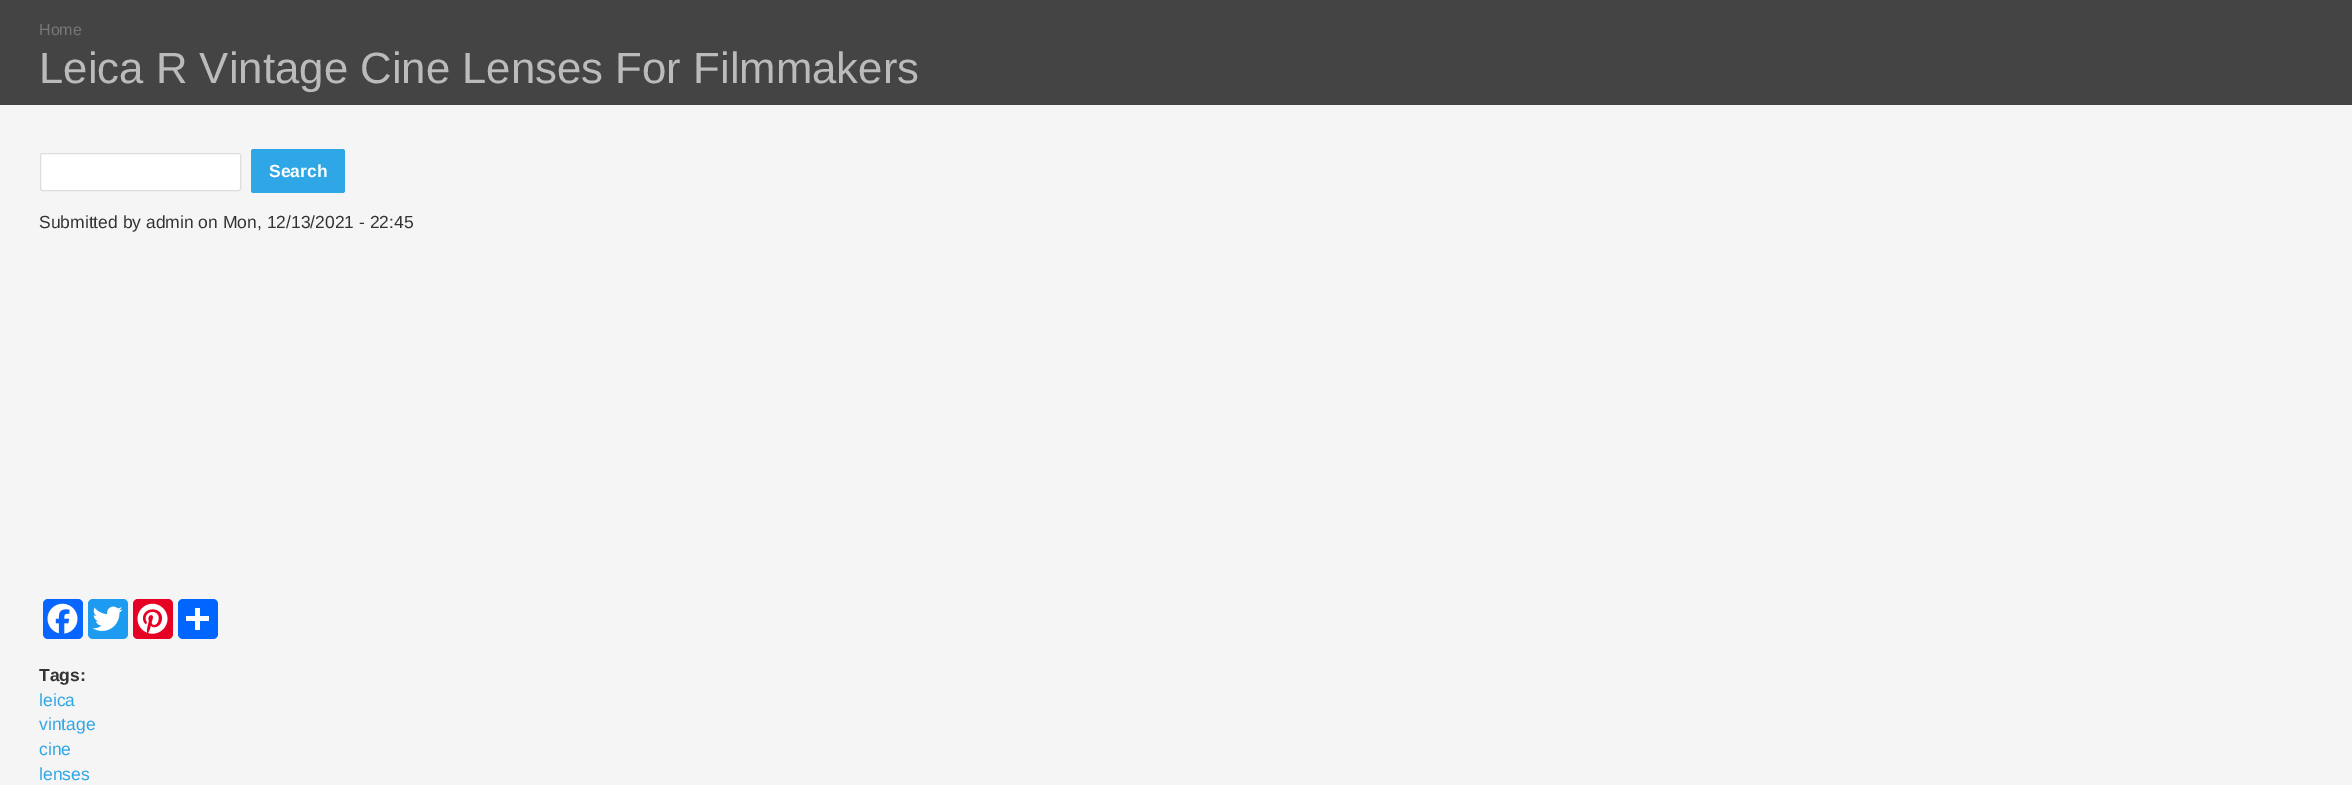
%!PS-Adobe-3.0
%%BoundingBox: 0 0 2352 785
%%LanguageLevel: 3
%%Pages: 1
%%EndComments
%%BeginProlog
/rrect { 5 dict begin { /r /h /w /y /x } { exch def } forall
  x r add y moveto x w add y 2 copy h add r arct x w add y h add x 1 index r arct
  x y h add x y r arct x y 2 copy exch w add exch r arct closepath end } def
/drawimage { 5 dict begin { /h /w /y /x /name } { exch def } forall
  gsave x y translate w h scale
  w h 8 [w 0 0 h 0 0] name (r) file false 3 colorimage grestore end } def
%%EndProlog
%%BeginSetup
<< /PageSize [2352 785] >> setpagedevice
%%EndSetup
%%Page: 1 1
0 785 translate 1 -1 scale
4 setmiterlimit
0.961 setgray
0 0 2352 785 rectfill
0.267 setgray
0 0 2352 105 rectfill
1 setgray
41 154 199 36 1 rrect fill
0.867 setgray
40.5 153.5 200 37 2 rrect stroke
0.184 0.651 0.898 setrgbcolor
251 149 94 44 2.5 rrect fill
0.031 0.4 1 setrgbcolor
43 599 40 40 5 rrect fill
(images/1.raw) 47 603 31 31 drawimage
0.114 0.608 0.941 setrgbcolor
88 599 40 40 5 rrect fill
(images/2.raw) 92 606 31 25 drawimage
0.902 0 0.137 setrgbcolor
133 599 40 40 5 rrect fill
(images/3.raw) 137 603 31 31 drawimage
0.004 0.4 1 setrgbcolor
178 599 40 40 5 rrect fill
1 setgray
195 608 5 22 rectfill
186 616 23 5 rectfill
/LiberationSans-Regular [16 0 0 -16 0 0] selectfont
0.467 setgray
39 35 moveto (Home) show
/LiberationSans-Regular [43.75 0 0 -43.75 0 0] selectfont
0.733 setgray
39 83 moveto (Leica R Vintage Cine Lenses For Filmmakers) show
/LiberationSans-Bold [17.5 0 0 -17.5 0 0] selectfont
1 setgray
269 177 moveto (Search) show
/LiberationSans-Regular [17.5 0 0 -17.5 0 0] selectfont
0.2 setgray
39 228 moveto (Submitted by admin on Mon, 12/13/2021 - 22:45) show
/LiberationSans-Bold [17.5 0 0 -17.5 0 0] selectfont
39 681 moveto (Tags:) show
/LiberationSans-Regular [17.5 0 0 -17.5 0 0] selectfont
0.184 0.651 0.898 setrgbcolor
39 706 moveto (leica) show
39 730 moveto (vintage) show
39 755 moveto (cine) show
39 780 moveto (lenses) show
showpage
%%EOF
